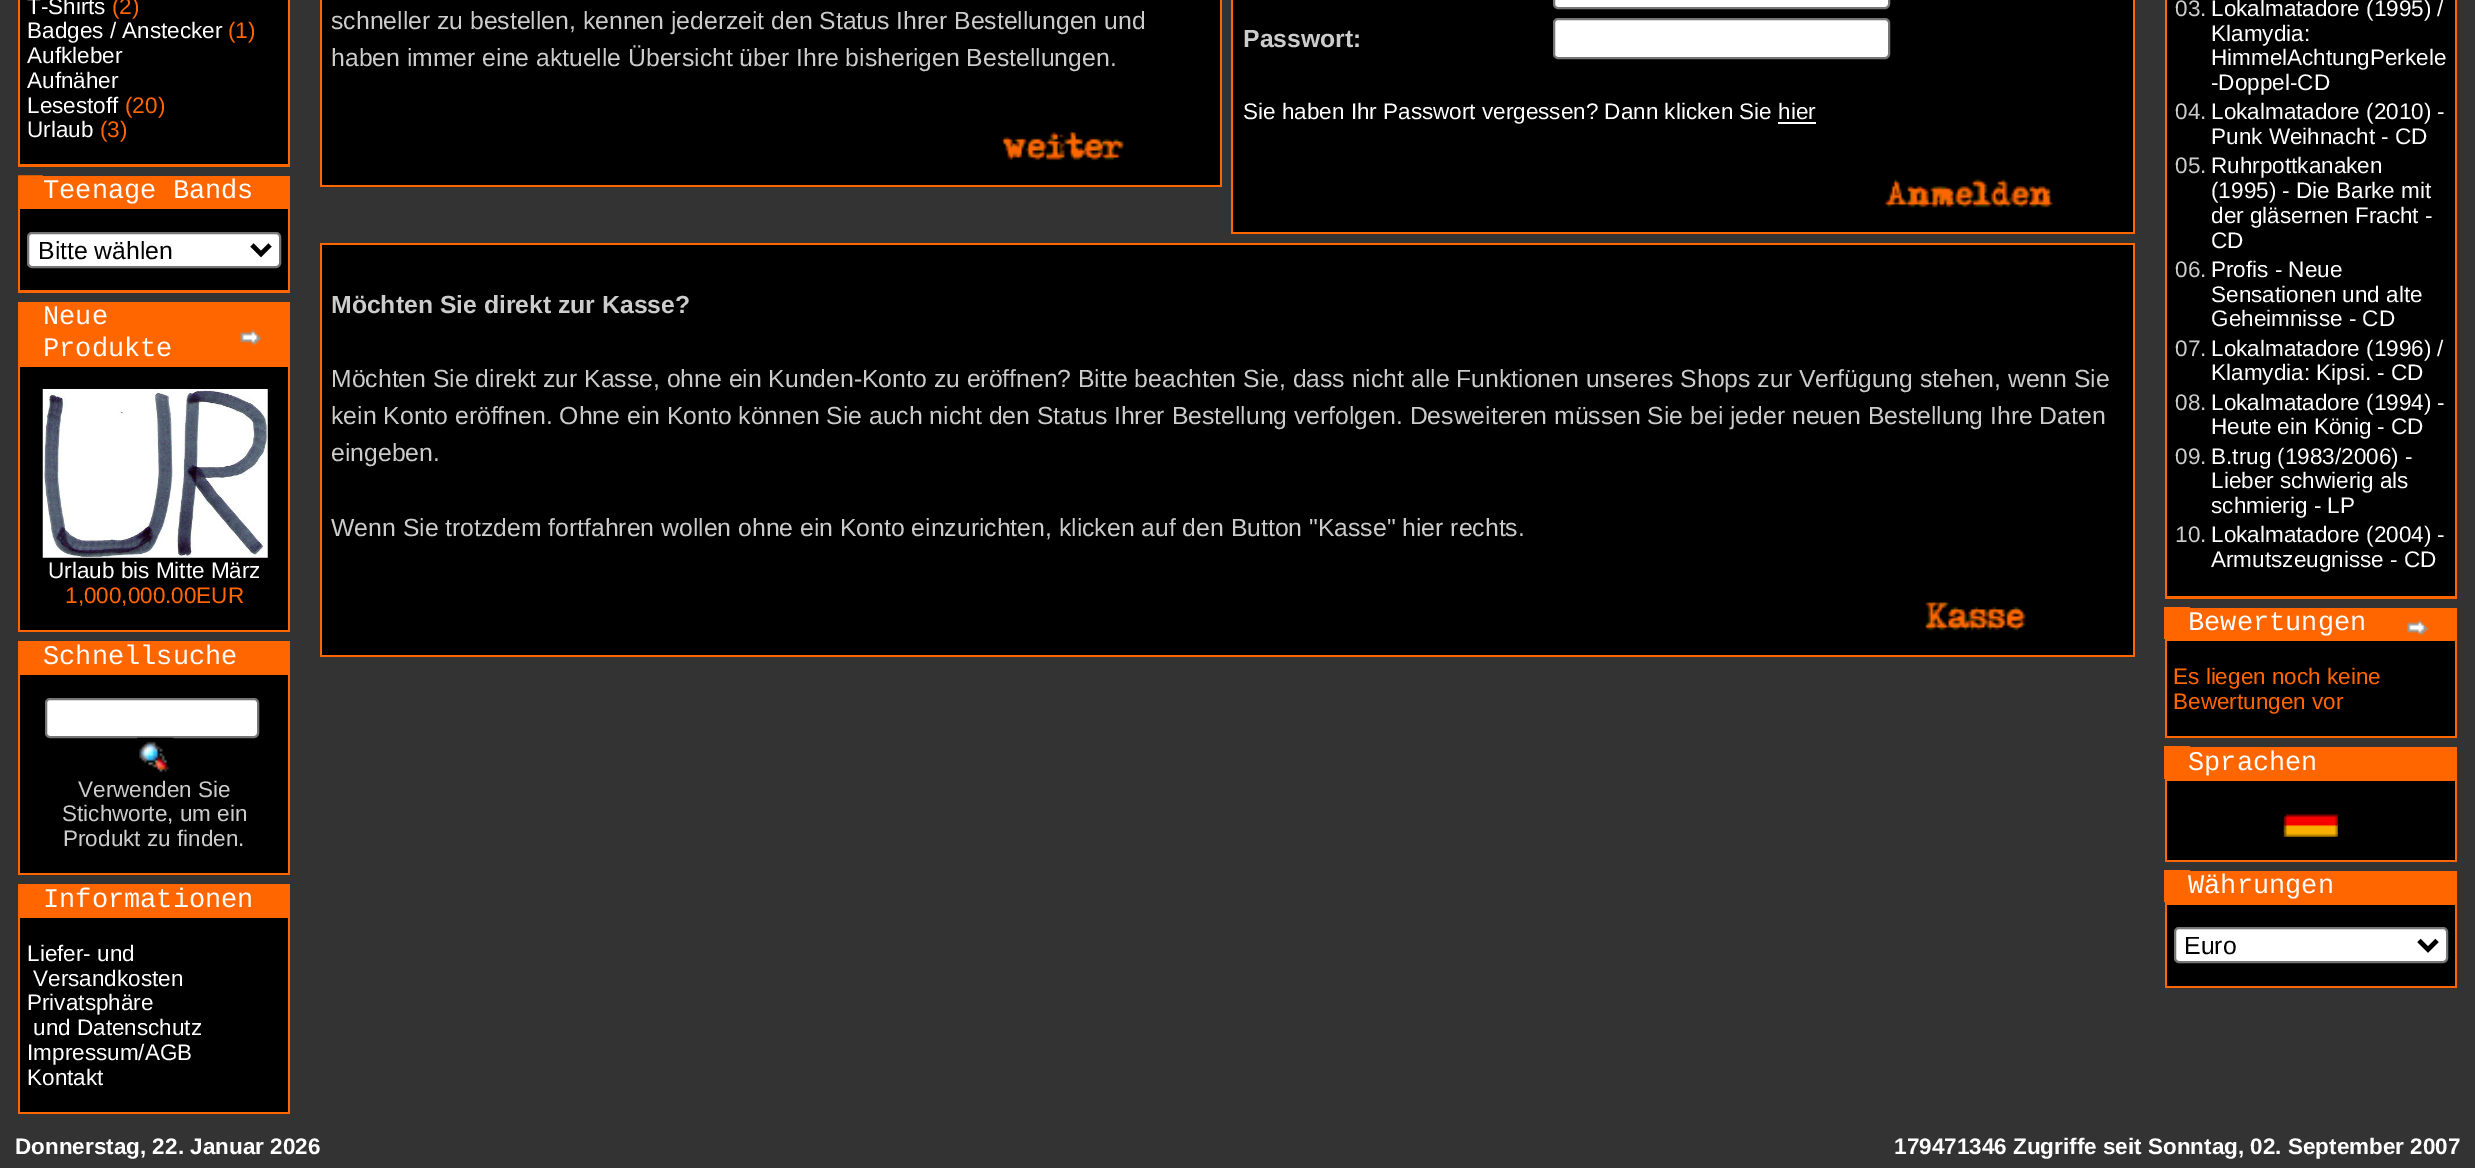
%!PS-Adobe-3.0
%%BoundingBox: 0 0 2475 1168
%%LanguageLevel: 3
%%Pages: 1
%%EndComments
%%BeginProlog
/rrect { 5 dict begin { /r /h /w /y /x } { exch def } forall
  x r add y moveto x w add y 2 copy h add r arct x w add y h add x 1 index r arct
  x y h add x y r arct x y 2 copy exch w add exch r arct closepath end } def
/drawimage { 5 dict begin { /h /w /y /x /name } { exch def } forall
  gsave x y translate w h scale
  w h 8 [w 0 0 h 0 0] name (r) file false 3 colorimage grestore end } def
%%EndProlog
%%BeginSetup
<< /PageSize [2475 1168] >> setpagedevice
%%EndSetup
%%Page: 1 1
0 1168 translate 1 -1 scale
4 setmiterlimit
0.2 setgray
0 0 2475 1168 rectfill
1 0.4 0 setrgbcolor
18 0 272 167 rectfill
0 setgray
20 0 268 164 rectfill
1 0.4 0 setrgbcolor
18 176 272 117 rectfill
(images/1.raw) 18 175 25 1 drawimage
0 setgray
20 209 268 81 rectfill
1 setgray
28 233 252 34 4 rrect gsave fill grestore
0.463 setgray
2 setlinewidth
stroke
0 setgray
4.5 setlinewidth
newpath 252 245 moveto 261 254 lineto 270 245 lineto stroke
1 0.4 0 setrgbcolor
18 302 272 330 rectfill
(images/2.raw) 240 330 22 15 drawimage
0 setgray
20 367 268 263 rectfill
(images/3.raw) 42 389 226 169 drawimage
1 0.4 0 setrgbcolor
18 641 272 234 rectfill
0 setgray
20 675 268 198 rectfill
1 setgray
46 699 212 38 4 rrect gsave fill grestore
0.463 setgray
2 setlinewidth
stroke
(images/4.raw) 137 737 37 36 drawimage
1 0.4 0 setrgbcolor
18 884 272 230 rectfill
0 setgray
20 918 268 194 rectfill
1 0.4 0 setrgbcolor
320 0 902 187 rectfill
0 setgray
322 0 898 185 rectfill
(images/5.raw) 1000 132 124 29 drawimage
1 0.4 0 setrgbcolor
1231 0 904 234 rectfill
0 setgray
1233 0 900 232 rectfill
1 setgray
1554 -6 335 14 4 rrect gsave fill grestore
0.463 setgray
stroke
1 setgray
1554 19 335 39 4 rrect gsave fill grestore
0.463 setgray
stroke
1 setgray
1778 122 38 2 rectfill
(images/6.raw) 1885 179 168 29 drawimage
1 0.4 0 setrgbcolor
320 243 1815 414 rectfill
0 setgray
322 245 1811 410 rectfill
(images/7.raw) 1925 602 101 29 drawimage
1 0.4 0 setrgbcolor
2165 0 292 599 rectfill
0 setgray
2167 0 288 596 rectfill
1 0.4 0 setrgbcolor
2164 607 26 32 rectfill
2190 608 267 31 rectfill
(images/8.raw) 2407 620 22 15 drawimage
2165 639 292 99 rectfill
0 setgray
2167 641 288 95 rectfill
1 0.4 0 setrgbcolor
2164 746 26 33 rectfill
2190 747 267 32 rectfill
2165 779 292 83 rectfill
0 setgray
2167 781 288 79 rectfill
(images/9.raw) 2283 813 55 24 drawimage
1 0.4 0 setrgbcolor
2164 870 26 32 rectfill
2190 871 267 31 rectfill
2165 902 292 86 rectfill
0 setgray
2167 905 288 81 rectfill
1 setgray
2175 928 272 34 4 rrect gsave fill grestore
0.463 setgray
stroke
0 setgray
4.5 setlinewidth
newpath 2419 940.5 moveto 2428 949.5 lineto 2437 940.5 lineto stroke
/LiberationSans-Regular [22.5 0 0 -22.5 0 0] selectfont
1 setgray
27 14 moveto (T-Shirts) show
1 0.4 0 setrgbcolor
112 14 moveto (\(2\)) show
1 setgray
27 38 moveto (Badges / Anstecker) show
1 0.4 0 setrgbcolor
228 38 moveto (\(1\)) show
1 setgray
27 63 moveto (Aufkleber) show
27 88 moveto (Aufnäher) show
27 113 moveto (Lesestoff) show
1 0.4 0 setrgbcolor
125 113 moveto (\(20\)) show
1 setgray
27 137 moveto (Urlaub) show
1 0.4 0 setrgbcolor
100 137 moveto (\(3\)) show
/LiberationMono-Regular [27 0 0 -27 0 0] selectfont
1 setgray
43 198 moveto (Teenage Bands) show
/LiberationSans-Regular [24.75 0 0 -24.75 0 0] selectfont
0 setgray
38 259 moveto (Bitte wählen) show
/LiberationMono-Regular [27 0 0 -27 0 0] selectfont
1 setgray
43 324 moveto (Neue) show
43 356 moveto (Produkte) show
/LiberationSans-Regular [22.5 0 0 -22.5 0 0] selectfont
48 578 moveto (Urlaub bis Mitte März) show
1 0.4 0 setrgbcolor
65 603 moveto (1,000,000.00EUR) show
/LiberationMono-Regular [27 0 0 -27 0 0] selectfont
1 setgray
43 664 moveto (Schnellsuche) show
/LiberationSans-Regular [22.5 0 0 -22.5 0 0] selectfont
0.8 setgray
78 797 moveto (Verwenden Sie) show
62 821 moveto (Stichworte, um ein) show
63 846 moveto (Produkt zu finden.) show
/LiberationMono-Regular [27 0 0 -27 0 0] selectfont
1 setgray
43 907 moveto (Informationen) show
/LiberationSans-Regular [22.5 0 0 -22.5 0 0] selectfont
27 961 moveto (Liefer- und) show
33 986 moveto (Versandkosten) show
27 1010 moveto (Privatsphäre) show
33 1035 moveto (und Datenschutz) show
27 1060 moveto (Impressum/AGB) show
27 1085 moveto (Kontakt) show
/LiberationSans-Regular [24.75 0 0 -24.75 0 0] selectfont
0.8 setgray
331 29 moveto (schneller zu bestellen, kennen jederzeit den Status Ihrer Bestellungen und) show
331 66 moveto (haben immer eine aktuelle Übersicht über Ihre bisherigen Bestellungen.) show
/LiberationSans-Bold [24.75 0 0 -24.75 0 0] selectfont
1243 47 moveto (Passwort:) show
/LiberationSans-Regular [22.5 0 0 -22.5 0 0] selectfont
1 setgray
1243 119 moveto (Sie haben Ihr Passwort vergessen? Dann klicken Sie hier) show
/LiberationSans-Bold [24.75 0 0 -24.75 0 0] selectfont
0.8 setgray
331 313 moveto (Möchten Sie direkt zur Kasse?) show
/LiberationSans-Regular [24.75 0 0 -24.75 0 0] selectfont
331 387 moveto (Möchten Sie direkt zur Kasse, ohne ein Kunden-Konto zu eröffnen? Bitte beachten Sie, dass nicht alle Funktionen unseres Shops zur Verfügung stehen, wenn Sie) show
331 424 moveto (kein Konto eröffnen. Ohne ein Konto können Sie auch nicht den Status Ihrer Bestellung verfolgen. Desweiteren müssen Sie bei jeder neuen Bestellung Ihre Daten) show
331 461 moveto (eingeben.) show
331 536 moveto (Wenn Sie trotzdem fortfahren wollen ohne ein Konto einzurichten, klicken auf den Button "Kasse" hier rechts.) show
/LiberationSans-Regular [22.5 0 0 -22.5 0 0] selectfont
2175 16 moveto (03.) show
1 setgray
2211 16 moveto (Lokalmatadore \(1995\) /) show
2211 41 moveto (Klamydia:) show
2211 65 moveto (HimmelAchtungPerkele) show
2211 90 moveto (-Doppel-CD) show
0.8 setgray
2175 119 moveto (04.) show
1 setgray
2211 119 moveto (Lokalmatadore \(2010\) -) show
2211 144 moveto (Punk Weihnacht - CD) show
0.8 setgray
2175 173 moveto (05.) show
1 setgray
2211 173 moveto (Ruhrpottkanaken) show
2211 198 moveto (\(1995\) - Die Barke mit) show
2211 223 moveto (der gläsernen Fracht -) show
2211 248 moveto (CD) show
0.8 setgray
2175 277 moveto (06.) show
1 setgray
2211 277 moveto (Profis - Neue) show
2211 302 moveto (Sensationen und alte) show
2211 326 moveto (Geheimnisse - CD) show
0.8 setgray
2175 356 moveto (07.) show
1 setgray
2211 356 moveto (Lokalmatadore \(1996\) /) show
2211 380 moveto (Klamydia: Kipsi. - CD) show
0.8 setgray
2175 410 moveto (08.) show
1 setgray
2211 410 moveto (Lokalmatadore \(1994\) -) show
2211 434 moveto (Heute ein König - CD) show
0.8 setgray
2175 464 moveto (09.) show
1 setgray
2211 464 moveto (B.trug \(1983/2006\) -) show
2211 488 moveto (Lieber schwierig als) show
2211 513 moveto (schmierig - LP) show
0.8 setgray
2175 542 moveto (10.) show
1 setgray
2211 542 moveto (Lokalmatadore \(2004\) -) show
2211 567 moveto (Armutszeugnisse - CD) show
/LiberationMono-Regular [27 0 0 -27 0 0] selectfont
2188 630 moveto (Bewertungen) show
/LiberationSans-Regular [22.5 0 0 -22.5 0 0] selectfont
1 0.4 0 setrgbcolor
2173 684 moveto (Es liegen noch keine) show
2173 709 moveto (Bewertungen vor) show
/LiberationMono-Regular [27 0 0 -27 0 0] selectfont
1 setgray
2188 770 moveto (Sprachen) show
2188 893 moveto (Währungen) show
/LiberationSans-Regular [24.75 0 0 -24.75 0 0] selectfont
0 setgray
2184 954 moveto (Euro) show
/LiberationSans-Bold [22.5 0 0 -22.5 0 0] selectfont
1 setgray
15 1154 moveto (Donnerstag, 22. Januar 2026) show
1894 1154 moveto (179471346 Zugriffe seit Sonntag, 02. September 2007) show
showpage
%%EOF
